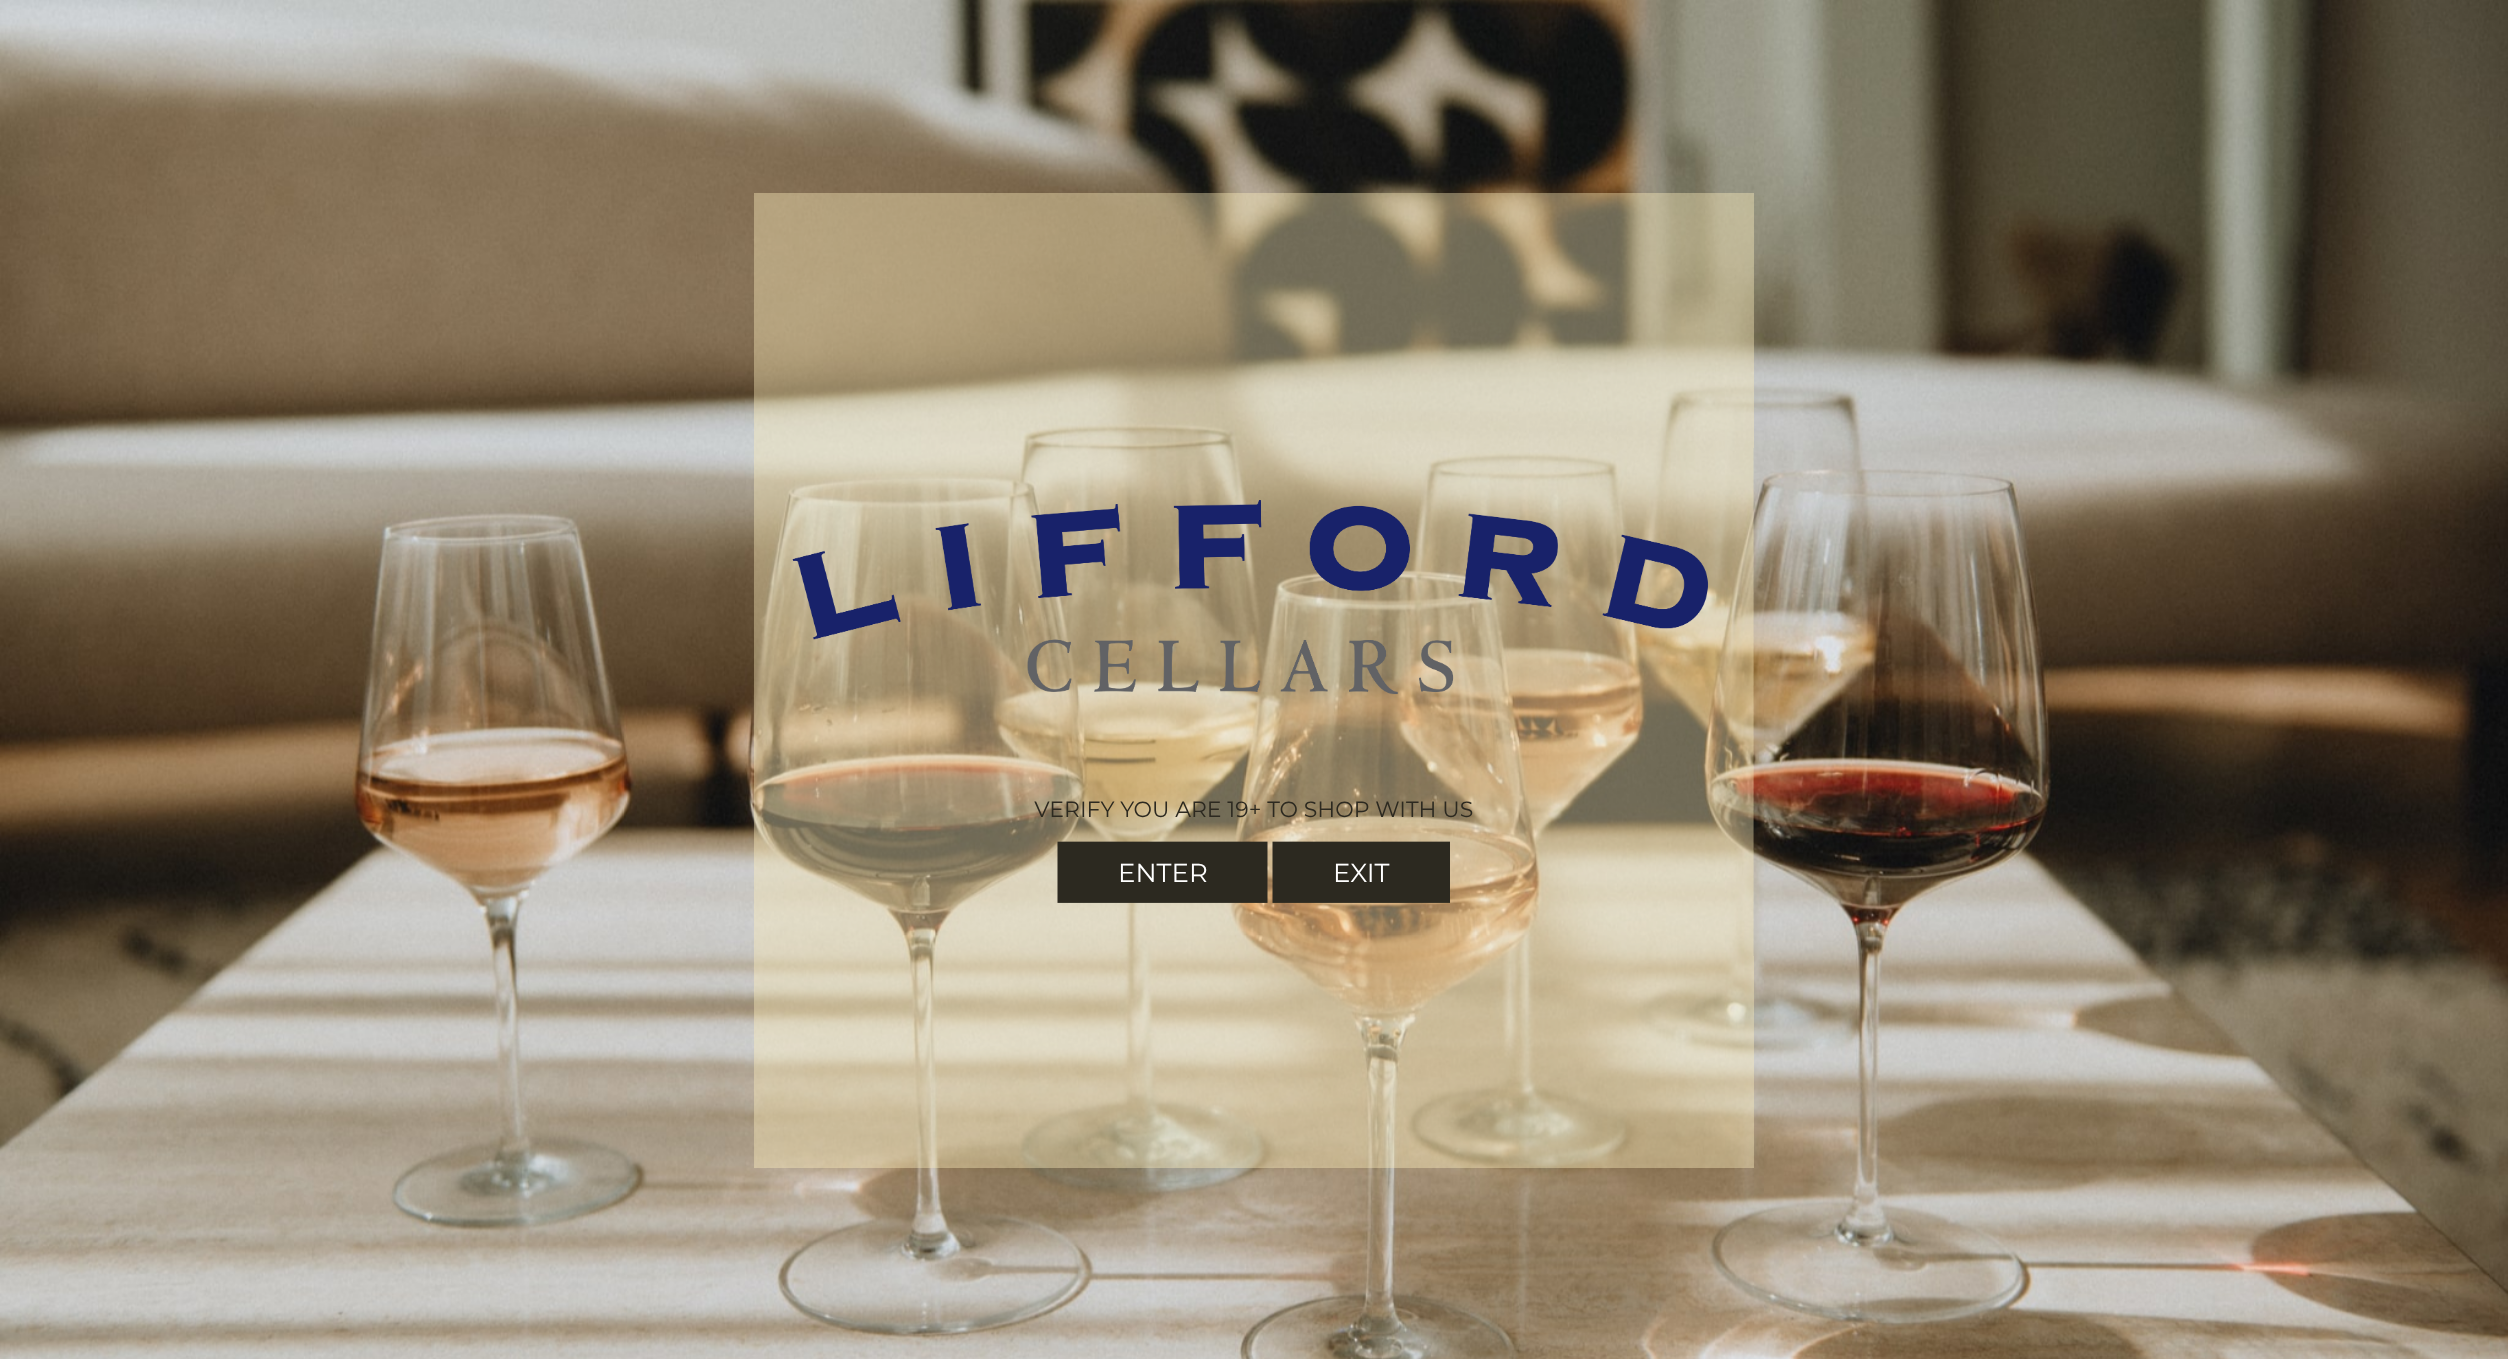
%!PS-Adobe-3.0
%%BoundingBox: 0 0 2508 1359
%%LanguageLevel: 3
%%Pages: 1
%%EndComments
%%BeginProlog
/drawimage { 5 dict begin { /h /w /y /x /name } { exch def } forall
  gsave x y translate w h scale
  w h 8 [w 0 0 h 0 0] name (r) file false 3 colorimage grestore end } def
%%EndProlog
%%BeginSetup
<< /PageSize [2508 1359] >> setpagedevice
%%EndSetup
%%Page: 1 1
0 1359 translate 1 -1 scale
4 setmiterlimit
1 setgray
0 0 2508 1359 rectfill
(images/1.raw) 0 0 2508 1359 drawimage
(images/2.raw) 754 193 1000 975 drawimage
showpage
%%EOF
